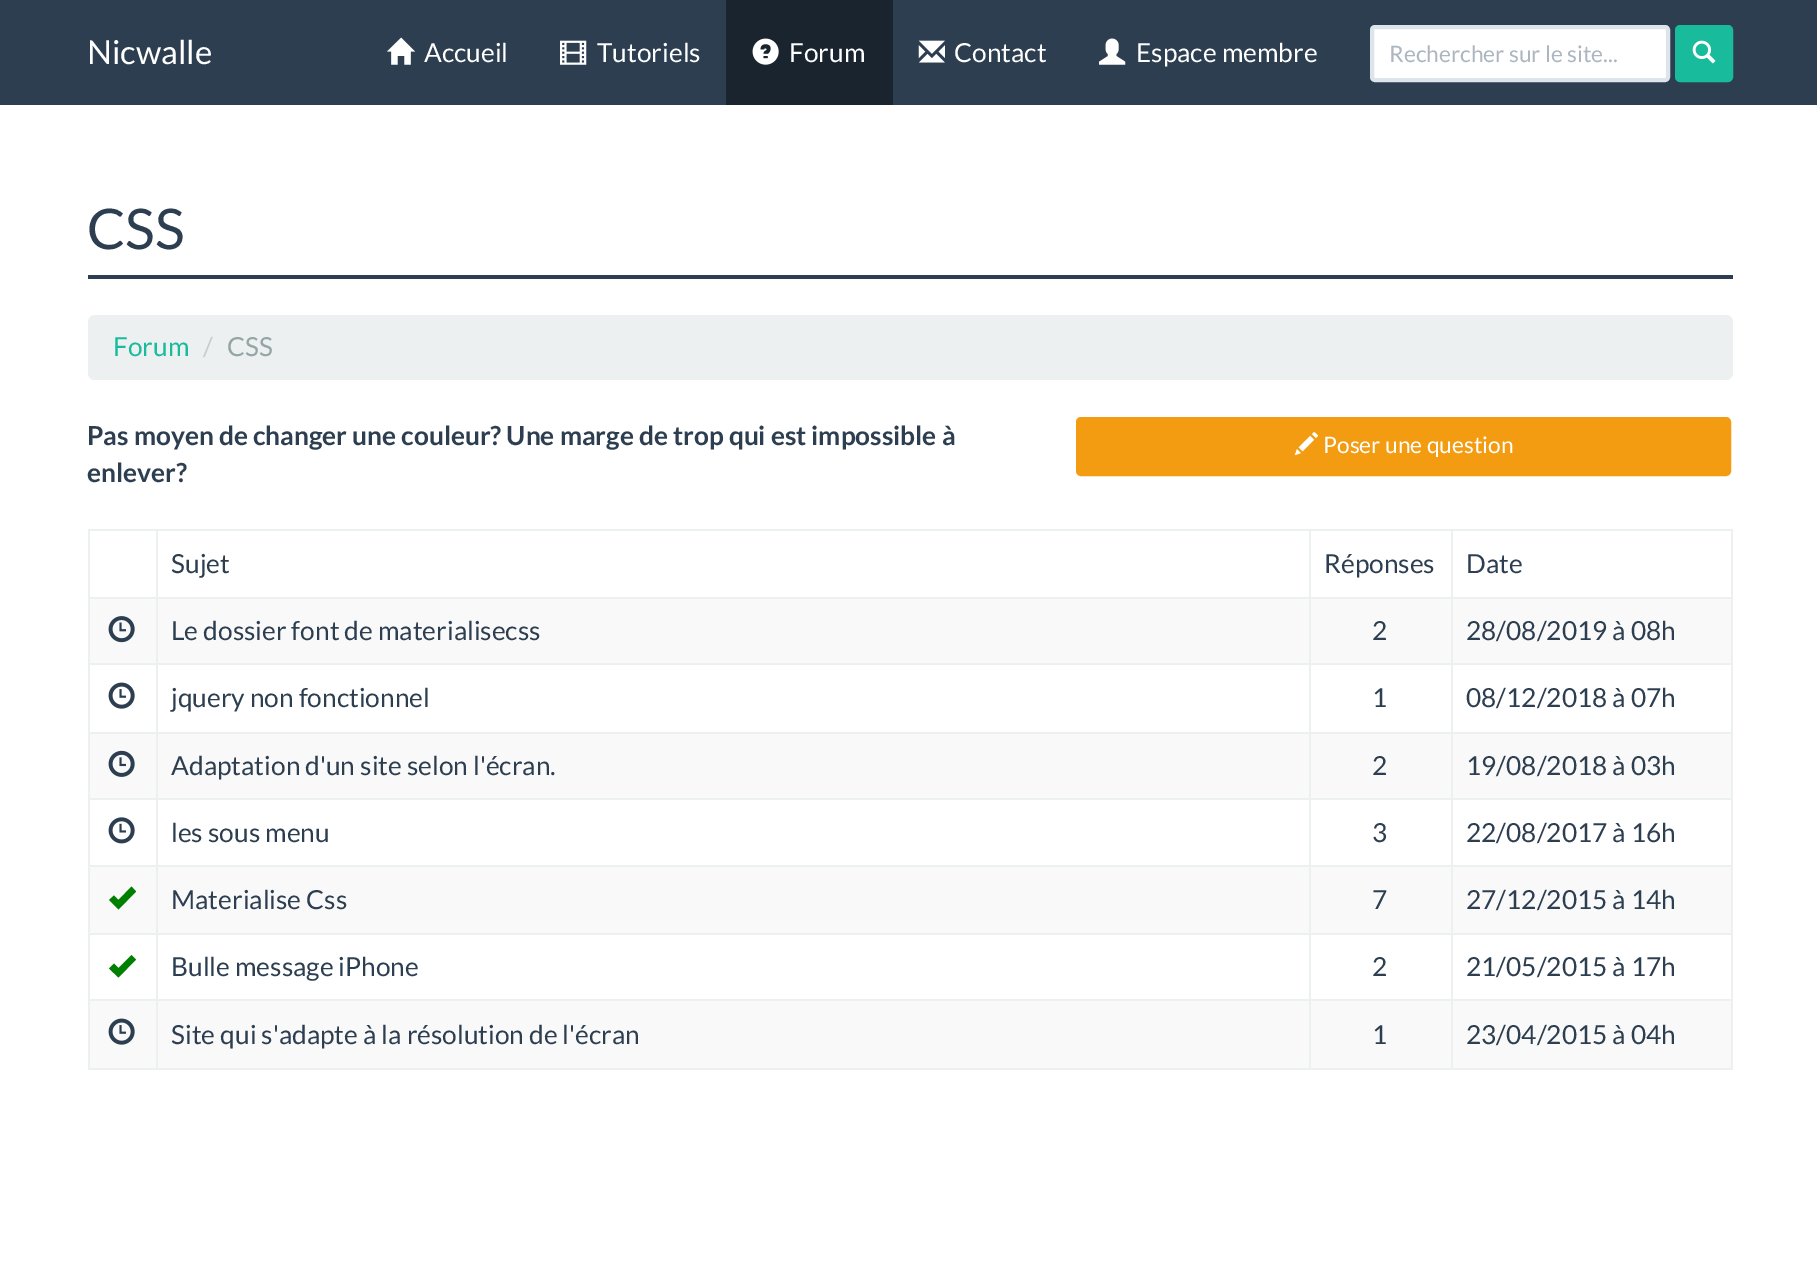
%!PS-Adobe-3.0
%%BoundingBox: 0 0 1817 1277
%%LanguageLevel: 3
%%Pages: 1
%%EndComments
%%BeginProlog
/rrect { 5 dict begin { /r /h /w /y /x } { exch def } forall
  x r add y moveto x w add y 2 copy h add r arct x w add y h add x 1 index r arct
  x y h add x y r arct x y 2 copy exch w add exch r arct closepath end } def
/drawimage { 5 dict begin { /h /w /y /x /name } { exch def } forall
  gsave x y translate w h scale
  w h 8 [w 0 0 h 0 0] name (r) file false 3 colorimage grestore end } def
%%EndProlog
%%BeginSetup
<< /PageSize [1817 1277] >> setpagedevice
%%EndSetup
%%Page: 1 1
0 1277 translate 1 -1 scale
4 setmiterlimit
1 setgray
0 0 1817 1277 rectfill
0.173 0.243 0.314 setrgbcolor
0 0 1817 105 rectfill
(images/1.raw) 386 37 30 28 drawimage
(images/2.raw) 560 40 27 25 drawimage
0.102 0.141 0.184 setrgbcolor
726 0 167 105 rectfill
(images/3.raw) 752 38 27 27 drawimage
(images/4.raw) 918 40 27 23 drawimage
(images/5.raw) 1099 38 27 27 drawimage
1 setgray
1372 27 296 53 3 rrect gsave fill grestore
0.863 0.894 0.925 setrgbcolor
4 setlinewidth
stroke
0.094 0.737 0.612 setrgbcolor
1676 26 56 55 4 rrect gsave fill grestore
2 setlinewidth
stroke
(images/6.raw) 1692 40 24 24 drawimage
0.173 0.243 0.314 setrgbcolor
88 275 1645 4 rectfill
0.925 0.941 0.945 setrgbcolor
88 315 1645 65 7 rrect fill
0.953 0.612 0.071 setrgbcolor
1077 418 653 57 4 rrect gsave fill grestore
stroke
(images/7.raw) 1294 432 24 24 drawimage
0.925 0.941 0.945 setrgbcolor
88 529 1645 2 rectfill
1731 529 2 540 rectfill
88 1068 1645 2 rectfill
88 529 2 540 rectfill
1451 597 282 2 rectfill
0.976 setgray
90 599 1641 64 rectfill
0.925 0.941 0.945 setrgbcolor
1451 663 282 2 rectfill
1451 732 282 2 rectfill
0.976 setgray
90 734 1641 64 rectfill
0.925 0.941 0.945 setrgbcolor
1451 798 282 2 rectfill
1451 865 282 2 rectfill
0.976 setgray
90 867 1641 66 rectfill
0.925 0.941 0.945 setrgbcolor
1451 933 282 2 rectfill
1451 999 282 2 rectfill
0.976 setgray
90 1001 1641 67 rectfill
0.925 0.941 0.945 setrgbcolor
1451 999 2 70 rectfill
1309 999 144 2 rectfill
1451 933 2 68 rectfill
1309 933 144 2 rectfill
1451 865 2 70 rectfill
1309 865 144 2 rectfill
1451 798 2 68 rectfill
1309 798 144 2 rectfill
1451 732 2 68 rectfill
1309 732 144 2 rectfill
1451 663 2 70 rectfill
1309 663 144 2 rectfill
1451 597 2 68 rectfill
1309 597 144 2 rectfill
1309 999 2 70 rectfill
156 999 1155 2 rectfill
1309 933 2 68 rectfill
156 933 1155 2 rectfill
1309 865 2 70 rectfill
156 865 1155 2 rectfill
1309 798 2 68 rectfill
156 798 1155 2 rectfill
1309 732 2 68 rectfill
156 732 1155 2 rectfill
1309 663 2 70 rectfill
156 663 1155 2 rectfill
1309 597 2 68 rectfill
156 597 1155 2 rectfill
156 999 2 70 rectfill
88 999 70 2 rectfill
156 933 2 68 rectfill
88 933 70 2 rectfill
156 865 2 70 rectfill
88 865 70 2 rectfill
156 798 2 68 rectfill
88 798 70 2 rectfill
156 732 2 68 rectfill
88 732 70 2 rectfill
156 663 2 70 rectfill
88 663 70 2 rectfill
156 597 2 68 rectfill
88 597 70 2 rectfill
156 529 2 70 rectfill
1309 529 2 70 rectfill
1451 529 2 70 rectfill
(images/8.raw) 108 616 27 27 drawimage
(images/9.raw) 108 682 27 27 drawimage
(images/10.raw) 108 750 27 27 drawimage
(images/11.raw) 108 817 27 27 drawimage
0 0.502 0 setrgbcolor
newpath 109 900 moveto 118.5 909.5 lineto 136 891.5 lineto 131.5 886.5 lineto 118.5 900 lineto 114 895.5 lineto closepath fill
newpath 109 968.5 moveto 118.5 977.5 lineto 136 959.5 lineto 131.5 955 lineto 118.5 968 lineto 114 963.5 lineto closepath fill
(images/12.raw) 108 1018 27 27 drawimage
/Lato-Regular [33 0 0 -33 0 0] selectfont
1 setgray
87 64 moveto (Nicwalle) show
/Lato-Regular [26.25 0 0 -26.25 0 0] selectfont
424 62 moveto (Accueil) show
597 62 moveto (Tutoriels) show
789 62 moveto (Forum) show
954 62 moveto (Contact) show
1136 62 moveto (Espace membre) show
/Lato-Regular [22.75 0 0 -22.75 0 0] selectfont
0.675 0.714 0.753 setrgbcolor
1389 62 moveto (Rechercher sur le site...) show
/Lato-Regular [56 0 0 -56 0 0] selectfont
0.173 0.243 0.314 setrgbcolor
87 249 moveto (CSS) show
/Lato-Regular [26.25 0 0 -26.25 0 0] selectfont
0.094 0.737 0.612 setrgbcolor
113 356 moveto (Forum) show
0.8 setgray
203 356 moveto (/) show
0.584 0.647 0.651 setrgbcolor
227 356 moveto (CSS) show
/Lato-Bold [26.25 0 0 -26.25 0 0] selectfont
0.173 0.243 0.314 setrgbcolor
87 445 moveto (Pas moyen de changer une couleur? Une marge de trop qui est impossible à) show
87 482 moveto (enlever?) show
/Lato-Regular [22.75 0 0 -22.75 0 0] selectfont
1 setgray
1323 453 moveto (Poser une question) show
/Lato-Regular [26.25 0 0 -26.25 0 0] selectfont
0.173 0.243 0.314 setrgbcolor
171 573 moveto (Sujet) show
1324 573 moveto (Réponses) show
1466 573 moveto (Date) show
171 640 moveto (Le dossier font de materialisecss) show
1372 640 moveto (2) show
1466 640 moveto (28/08/2019 à 08h) show
171 707 moveto (jquery non fonctionnel) show
1372 707 moveto (1) show
1466 707 moveto (08/12/2018 à 07h) show
171 775 moveto (Adaptation d'un site selon l'écran.) show
1372 775 moveto (2) show
1466 775 moveto (19/08/2018 à 03h) show
171 842 moveto (les sous menu) show
1372 842 moveto (3) show
1466 842 moveto (22/08/2017 à 16h) show
171 909 moveto (Materialise Css) show
1372 909 moveto (7) show
1466 909 moveto (27/12/2015 à 14h) show
171 976 moveto (Bulle message iPhone) show
1372 976 moveto (2) show
1466 976 moveto (21/05/2015 à 17h) show
171 1044 moveto (Site qui s'adapte à la résolution de l'écran) show
1372 1044 moveto (1) show
1466 1044 moveto (23/04/2015 à 04h) show
showpage
%%EOF
